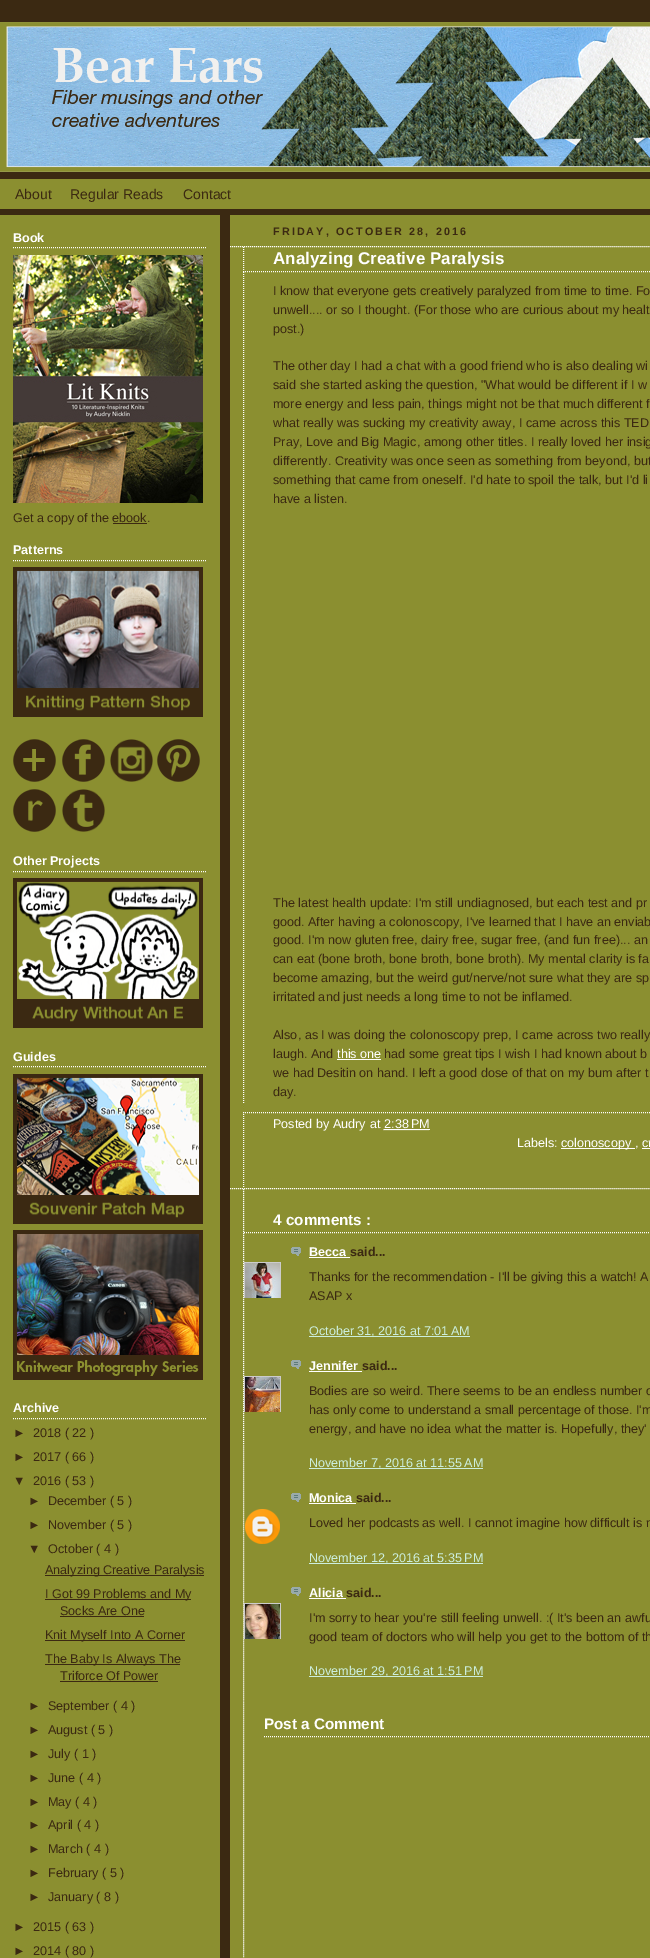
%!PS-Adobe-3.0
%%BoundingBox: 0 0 650 1958
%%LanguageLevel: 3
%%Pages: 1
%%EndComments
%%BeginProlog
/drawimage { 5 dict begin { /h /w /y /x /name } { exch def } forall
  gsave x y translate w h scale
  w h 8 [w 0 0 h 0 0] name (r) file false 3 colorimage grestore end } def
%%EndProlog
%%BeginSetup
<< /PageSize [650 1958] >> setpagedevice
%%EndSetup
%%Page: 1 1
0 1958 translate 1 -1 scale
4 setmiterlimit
0.231 0.161 0.071 setrgbcolor
0 0 650 1958 rectfill
(images/1.raw) 0 22 650 150 drawimage
0.545 0.561 0.188 setrgbcolor
0 179 650 30 rectfill
0 215 220 1743 rectfill
1 setgray
[1 1] 0 setdash
newpath 13 247.5 moveto 207 247.5 lineto stroke
(images/2.raw) 13 255 190 248 drawimage
0.231 0.161 0.071 setrgbcolor
113 523 34 1 rectfill
1 setgray
newpath 13 560.5 moveto 207 560.5 lineto stroke
(images/3.raw) 13 567 190 150 drawimage
(images/4.raw) 13 739 43 43 drawimage
(images/5.raw) 62 739 43 43 drawimage
(images/6.raw) 110 739 43 43 drawimage
(images/7.raw) 157 739 43 43 drawimage
(images/8.raw) 13 789 43 43 drawimage
(images/9.raw) 62 789 43 43 drawimage
newpath 13 871.5 moveto 207 871.5 lineto stroke
(images/10.raw) 13 878 190 150 drawimage
newpath 13 1066.5 moveto 207 1066.5 lineto stroke
(images/11.raw) 13 1074 190 150 drawimage
(images/12.raw) 13 1230 190 150 drawimage
newpath 13 1418.5 moveto 207 1418.5 lineto stroke
0.231 0.161 0.071 setrgbcolor
45 1575 159 1 rectfill
45 1599 146 1 rectfill
60 1616 84 1 rectfill
45 1640 140 1 rectfill
45 1664 135 1 rectfill
60 1681 98 1 rectfill
0.545 0.561 0.188 setrgbcolor
230 215 420 1743 rectfill
1 setgray
newpath 230 246.5 moveto 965 246.5 lineto stroke
newpath 230 1188.5 moveto 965 1188.5 lineto stroke
newpath 243 271.5 moveto 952 271.5 lineto stroke
newpath 243.5 247 moveto 243.5 272 lineto stroke
newpath 243.5 272 moveto 243.5 1103 lineto stroke
337 1059 44 1 rectfill
newpath 243 1112.5 moveto 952 1112.5 lineto stroke
newpath 243.5 1112 moveto 243.5 1188 lineto stroke
newpath 383.5 1129.5 moveto 429.5 1129.5 lineto stroke
384 1129 46 1 rectfill
561 1148 74 1 rectfill
642 1148 8 1 rectfill
newpath 243.5 1189 moveto 243.5 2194 lineto stroke
newpath 244 1232.5 moveto 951 1232.5 lineto stroke
(images/13.raw) 291 1247 10 9 drawimage
309 1257 41 1 rectfill
gsave
244 1262 37 36 rectclip
0.8 setgray
[] 0 setdash
244.5 1262.5 36 36 rectstroke
grestore
(images/14.raw) 245 1263 35 35 drawimage
0.8 0.933 0.867 setrgbcolor
309 1336 161 1 rectfill
(images/13.raw) 291 1360 10 9 drawimage
1 setgray
309 1371 53 1 rectfill
gsave
244 1376 37 36 rectclip
0.8 setgray
[] 0 setdash
244.5 1376.5 36 36 rectstroke
grestore
(images/15.raw) 245 1377 35 35 drawimage
0.8 0.933 0.867 setrgbcolor
309 1468 174 1 rectfill
(images/13.raw) 291 1493 10 9 drawimage
1 setgray
309 1503 47 1 rectfill
(images/16.raw) 245 1509 35 35 drawimage
0.8 0.933 0.867 setrgbcolor
309 1563 174 1 rectfill
(images/13.raw) 291 1587 10 9 drawimage
1 setgray
309 1598 37 1 rectfill
gsave
244 1603 37 36 rectclip
0.8 setgray
[] 0 setdash
244.5 1603.5 36 36 rectstroke
grestore
(images/17.raw) 245 1604 35 35 drawimage
0.8 0.933 0.867 setrgbcolor
309 1676 174 1 rectfill
1 setgray
newpath 264 1736.5 moveto 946 1736.5 lineto stroke
/LiberationSans-Regular [14 0 0 -14 0 0] selectfont
0.231 0.161 0.071 setrgbcolor
15 199 moveto (About) show
70 199 moveto (Regular Reads) show
183 199 moveto (Contact) show
/LiberationSans-Bold [12.6 0 0 -12.6 0 0] selectfont
1 setgray
13 242 moveto (Book) show
/LiberationSans-Regular [12.6 0 0 -12.6 0 0] selectfont
0.231 0.161 0.071 setrgbcolor
13 522 moveto (Get a copy of the ebook.) show
/LiberationSans-Bold [12.6 0 0 -12.6 0 0] selectfont
1 setgray
13 554 moveto (Patterns) show
13 865 moveto (Other Projects) show
13 1061 moveto (Guides) show
13 1412 moveto (Archive) show
/LiberationSans-Regular [12.6 0 0 -12.6 0 0] selectfont
0.231 0.161 0.071 setrgbcolor
13 1437 moveto (►) show
33 1437 moveto (2018 \( 22 \)) show
13 1461 moveto (►) show
33 1461 moveto (2017 \( 66 \)) show
13 1485 moveto (▼) show
33 1485 moveto (2016 \( 53 \)) show
28 1505 moveto (►) show
48 1505 moveto (December \( 5 \)) show
28 1529 moveto (►) show
48 1529 moveto (November \( 5 \)) show
28 1553 moveto (▼) show
48 1553 moveto (October \( 4 \)) show
45 1574 moveto (Analyzing Creative Paralysis) show
45 1598 moveto (I Got 99 Problems and My) show
60 1615 moveto (Socks Are One) show
45 1639 moveto (Knit Myself Into A Corner) show
45 1663 moveto (The Baby Is Always The) show
60 1680 moveto (Triforce Of Power) show
28 1710 moveto (►) show
48 1710 moveto (September \( 4 \)) show
28 1734 moveto (►) show
48 1734 moveto (August \( 5 \)) show
28 1758 moveto (►) show
48 1758 moveto (July \( 1 \)) show
28 1782 moveto (►) show
48 1782 moveto (June \( 4 \)) show
28 1806 moveto (►) show
48 1806 moveto (May \( 4 \)) show
28 1829 moveto (►) show
48 1829 moveto (April \( 4 \)) show
28 1853 moveto (►) show
48 1853 moveto (March \( 4 \)) show
28 1877 moveto (►) show
48 1877 moveto (February \( 5 \)) show
28 1901 moveto (►) show
48 1901 moveto (January \( 8 \)) show
13 1931 moveto (►) show
33 1931 moveto (2015 \( 63 \)) show
13 1955 moveto (►) show
33 1955 moveto (2014 \( 80 \)) show
/LiberationSans-Bold [10.75 0 0 -10.75 0 0] selectfont
273 235 moveto 2.1 0 (FRIDAY, OCTOBER 28, 2016) ashow
/LiberationSans-Bold [17 0 0 -17 0 0] selectfont
1 setgray
273 264 moveto (Analyzing Creative Paralysis) show
/LiberationSans-Regular [12.6 0 0 -12.6 0 0] selectfont
0.231 0.161 0.071 setrgbcolor
273 295 moveto (I know that everyone gets creatively paralyzed from time to time. Fo) show
273 314 moveto (unwell.... or so I thought. \(For those who are curious about my healt) show
273 333 moveto (post.\)) show
273 370 moveto (The other day I had a chat with a good friend who is also dealing wi) show
273 389 moveto (said she started asking the question, "What would be different if I w) show
273 408 moveto (more energy and less pain, things might not be that much different f) show
273 427 moveto (what really was sucking my creativity away, I came across this TED) show
273 446 moveto (Pray, Love and Big Magic, among other titles. I really loved her insig) show
273 465 moveto (differently. Creativity was once seen as something from beyond, but) show
273 484 moveto (something that came from oneself. I'd hate to spoil the talk, but I'd li) show
273 503 moveto (have a listen.) show
273 907 moveto (The latest health update: I'm still undiagnosed, but each test and pr) show
273 926 moveto (good. After having a colonoscopy, I've learned that I have an enviab) show
273 944 moveto (good. I'm now gluten free, dairy free, sugar free, \(and fun free\)... an) show
273 963 moveto (can eat \(bone broth, bone broth, bone broth\). My mental clarity is fa) show
273 982 moveto (become amazing, but the weird gut/nerve/not sure what they are sp) show
273 1001 moveto (irritated and just needs a long time to not be inflamed.) show
273 1039 moveto (Also, as I was doing the colonoscopy prep, I came across two really) show
273 1058 moveto (laugh. And) show
1 setgray
337 1058 moveto (this one) show
0.231 0.161 0.071 setrgbcolor
384 1058 moveto (had some great tips I wish I had known about b) show
273 1077 moveto (we had Desitin on hand. I left a good dose of that on my bum after t) show
273 1096 moveto (day.) show
1 setgray
273 1128 moveto (Posted by Audry) show
370 1128 moveto (at 2:38 PM) show
517 1147 moveto (Labels:) show
561 1147 moveto (colonoscopy , cr) show
/LiberationSans-Bold [15.25 0 0 -15.25 0 0] selectfont
273 1225 moveto (4 comments :) show
/LiberationSans-Bold [12.6 0 0 -12.6 0 0] selectfont
309 1256 moveto (Becca) show
0.231 0.161 0.071 setrgbcolor
350 1256 moveto (said...) show
/LiberationSans-Regular [12.6 0 0 -12.6 0 0] selectfont
309 1281 moveto (Thanks for the recommendation - I'll be giving this a watch! A) show
309 1300 moveto (ASAP x) show
0.8 0.933 0.867 setrgbcolor
309 1335 moveto (October 31, 2016 at 7:01 AM) show
/LiberationSans-Bold [12.6 0 0 -12.6 0 0] selectfont
1 setgray
309 1370 moveto (Jennifer) show
0.231 0.161 0.071 setrgbcolor
362 1370 moveto (said...) show
/LiberationSans-Regular [12.6 0 0 -12.6 0 0] selectfont
309 1395 moveto (Bodies are so weird. There seems to be an endless number o) show
309 1414 moveto (has only come to understand a small percentage of those. I'm) show
309 1433 moveto (energy, and have no idea what the matter is. Hopefully, they') show
0.8 0.933 0.867 setrgbcolor
309 1467 moveto (November 7, 2016 at 11:55 AM) show
/LiberationSans-Bold [12.6 0 0 -12.6 0 0] selectfont
1 setgray
309 1502 moveto (Monica) show
0.231 0.161 0.071 setrgbcolor
356 1502 moveto (said...) show
/LiberationSans-Regular [12.6 0 0 -12.6 0 0] selectfont
309 1527 moveto (Loved her podcasts as well. I cannot imagine how difficult is n) show
0.8 0.933 0.867 setrgbcolor
309 1562 moveto (November 12, 2016 at 5:35 PM) show
/LiberationSans-Bold [12.6 0 0 -12.6 0 0] selectfont
1 setgray
309 1597 moveto (Alicia) show
0.231 0.161 0.071 setrgbcolor
346 1597 moveto (said...) show
/LiberationSans-Regular [12.6 0 0 -12.6 0 0] selectfont
309 1622 moveto (I'm sorry to hear you're still feeling unwell. :\( It's been an awfu) show
309 1641 moveto (good team of doctors who will help you get to the bottom of th) show
0.8 0.933 0.867 setrgbcolor
309 1675 moveto (November 29, 2016 at 1:51 PM) show
/LiberationSans-Bold [15.25 0 0 -15.25 0 0] selectfont
1 setgray
264 1729 moveto (Post a Comment) show
showpage
%%EOF
